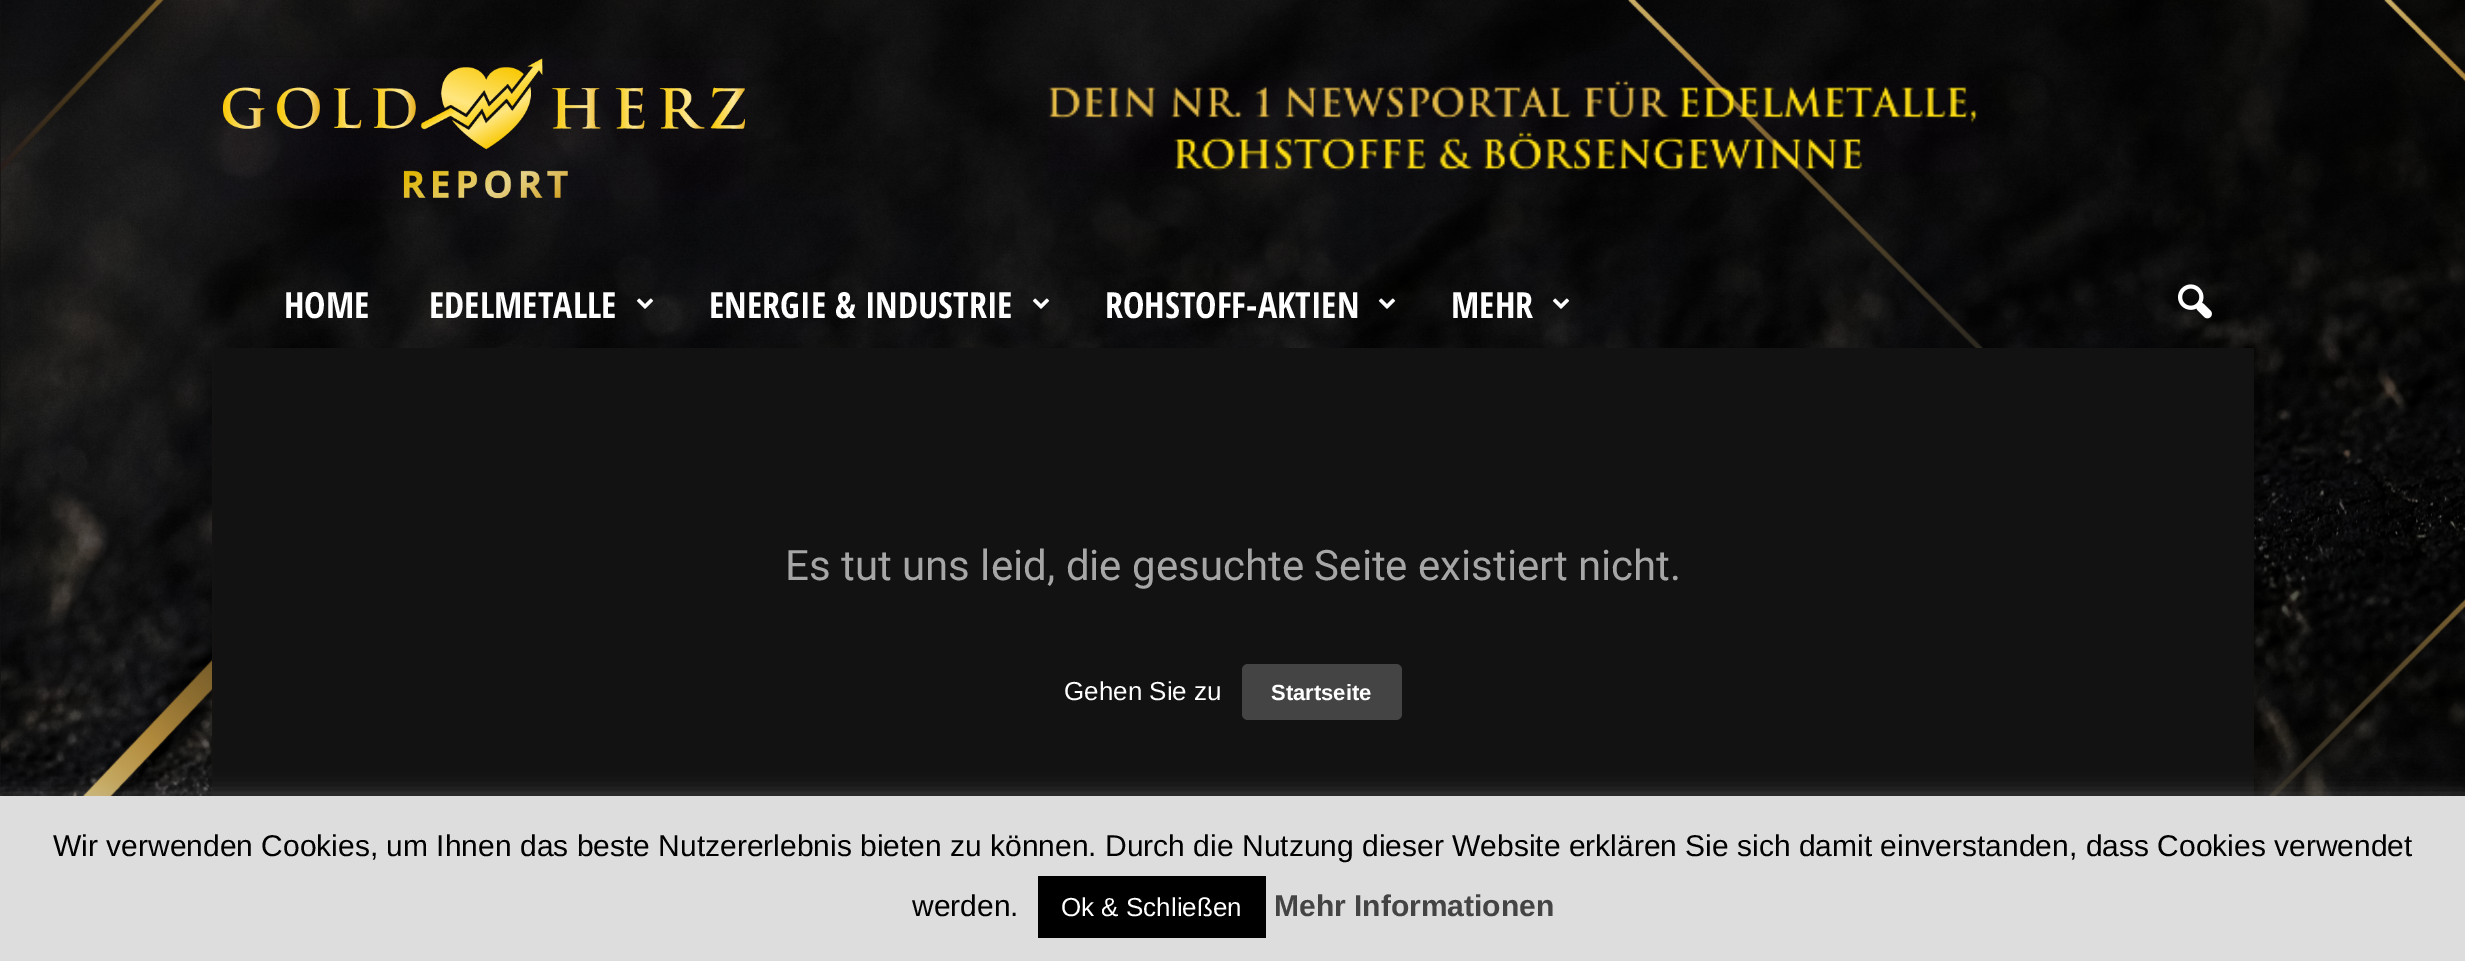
%!PS-Adobe-3.0
%%BoundingBox: 0 0 2465 961
%%LanguageLevel: 3
%%Pages: 1
%%EndComments
%%BeginProlog
/setalpha { dup .setfillconstantalpha .setstrokeconstantalpha } def
/rrect { 5 dict begin { /r /h /w /y /x } { exch def } forall
  x r add y moveto x w add y 2 copy h add r arct x w add y h add x 1 index r arct
  x y h add x y r arct x y 2 copy exch w add exch r arct closepath end } def
/softshadow { 12 dict begin { /a /b /q /h /w /y /x } { exch def } forall gsave /was 0 def
  9 -2 -9 { dup b mul 4 div /e exch def 1 sub .425 mul 2.718 exch exp 1 add a .99 .min exch div /now exch def
    1 1 now sub 1 was sub div sub setalpha /was now def
    w h .min e 2 mul add 0 gt { x e sub y e sub w e 2 mul add h e 2 mul add
      q e add b .6 mul add w h .min 2 div e add .min 0 .max rrect fill } if } for grestore end } def
/drawimage { 5 dict begin { /h /w /y /x /name } { exch def } forall
  gsave x y translate w h scale
  w h 8 [w 0 0 h 0 0] name (r) file false 3 colorimage grestore end } def
%%EndProlog
%%BeginSetup
<< /PageSize [2465 961] /PageUsesTransparency true >> setpagedevice
%%EndSetup
%%Page: 1 1
0 .pushpdf14devicefilter
0 961 translate 1 -1 scale
4 setmiterlimit
0.071 setgray
0 0 2465 961 rectfill
(images/1.raw) 0 0 2465 796 drawimage
(images/2.raw) 222 58 523 141 drawimage
(images/3.raw) 1048 80 930 91 drawimage
(images/4.raw) 636 298 18 11 drawimage
(images/5.raw) 1032 298 18 11 drawimage
(images/6.raw) 1378 298 18 11 drawimage
(images/7.raw) 1552 298 18 11 drawimage
(images/8.raw) 2178 284 34 35 drawimage
214 348 2040 448 rectfill
0.078 0.075 0.071 setrgbcolor
212 348 2 448 rectfill
0.267 setgray
1242 664 160 56 6 rrect fill
0.675 0.671 0.671 setrgbcolor
0 794 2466 166 0 10 0.3 softshadow
0.867 setgray
0 796 2465 165 rectfill
0 setgray
1038 876 228 62 rectfill
/OpenSansCondensed-Bold [36 0 0 -36 0 0] selectfont
1 setgray
284 318 moveto (HOME) show
429 318 moveto (EDELMETALLE) show
709 318 moveto (ENERGIE & INDUSTRIE) show
1105 318 moveto (ROHSTOFF-AKTIEN) show
1451 318 moveto (MEHR) show
/Roboto-Regular [42 0 0 -42 0 0] selectfont
0.651 setgray
785 580 moveto (Es tut uns leid, die gesuchte Seite existiert nicht.) show
/LiberationSans-Regular [26 0 0 -26 0 0] selectfont
1 setgray
1064 700 moveto (Gehen Sie zu) show
/LiberationSans-Bold [22 0 0 -22 0 0] selectfont
1271 700 moveto (Startseite) show
/LiberationSans-Regular [30 0 0 -30 0 0] selectfont
0 setgray
53 856 moveto (Wir verwenden Cookies, um Ihnen das beste Nutzererlebnis bieten zu können. Durch die Nutzung dieser Website erklären Sie sich damit einverstanden, dass Cookies verwendet) show
912 916 moveto (werden.) show
/LiberationSans-Regular [26 0 0 -26 0 0] selectfont
1 setgray
1061 916 moveto (Ok & Schließen) show
/LiberationSans-Bold [30 0 0 -30 0 0] selectfont
0.267 setgray
1274 916 moveto (Mehr Informationen) show
.poppdf14devicefilter showpage
%%EOF
